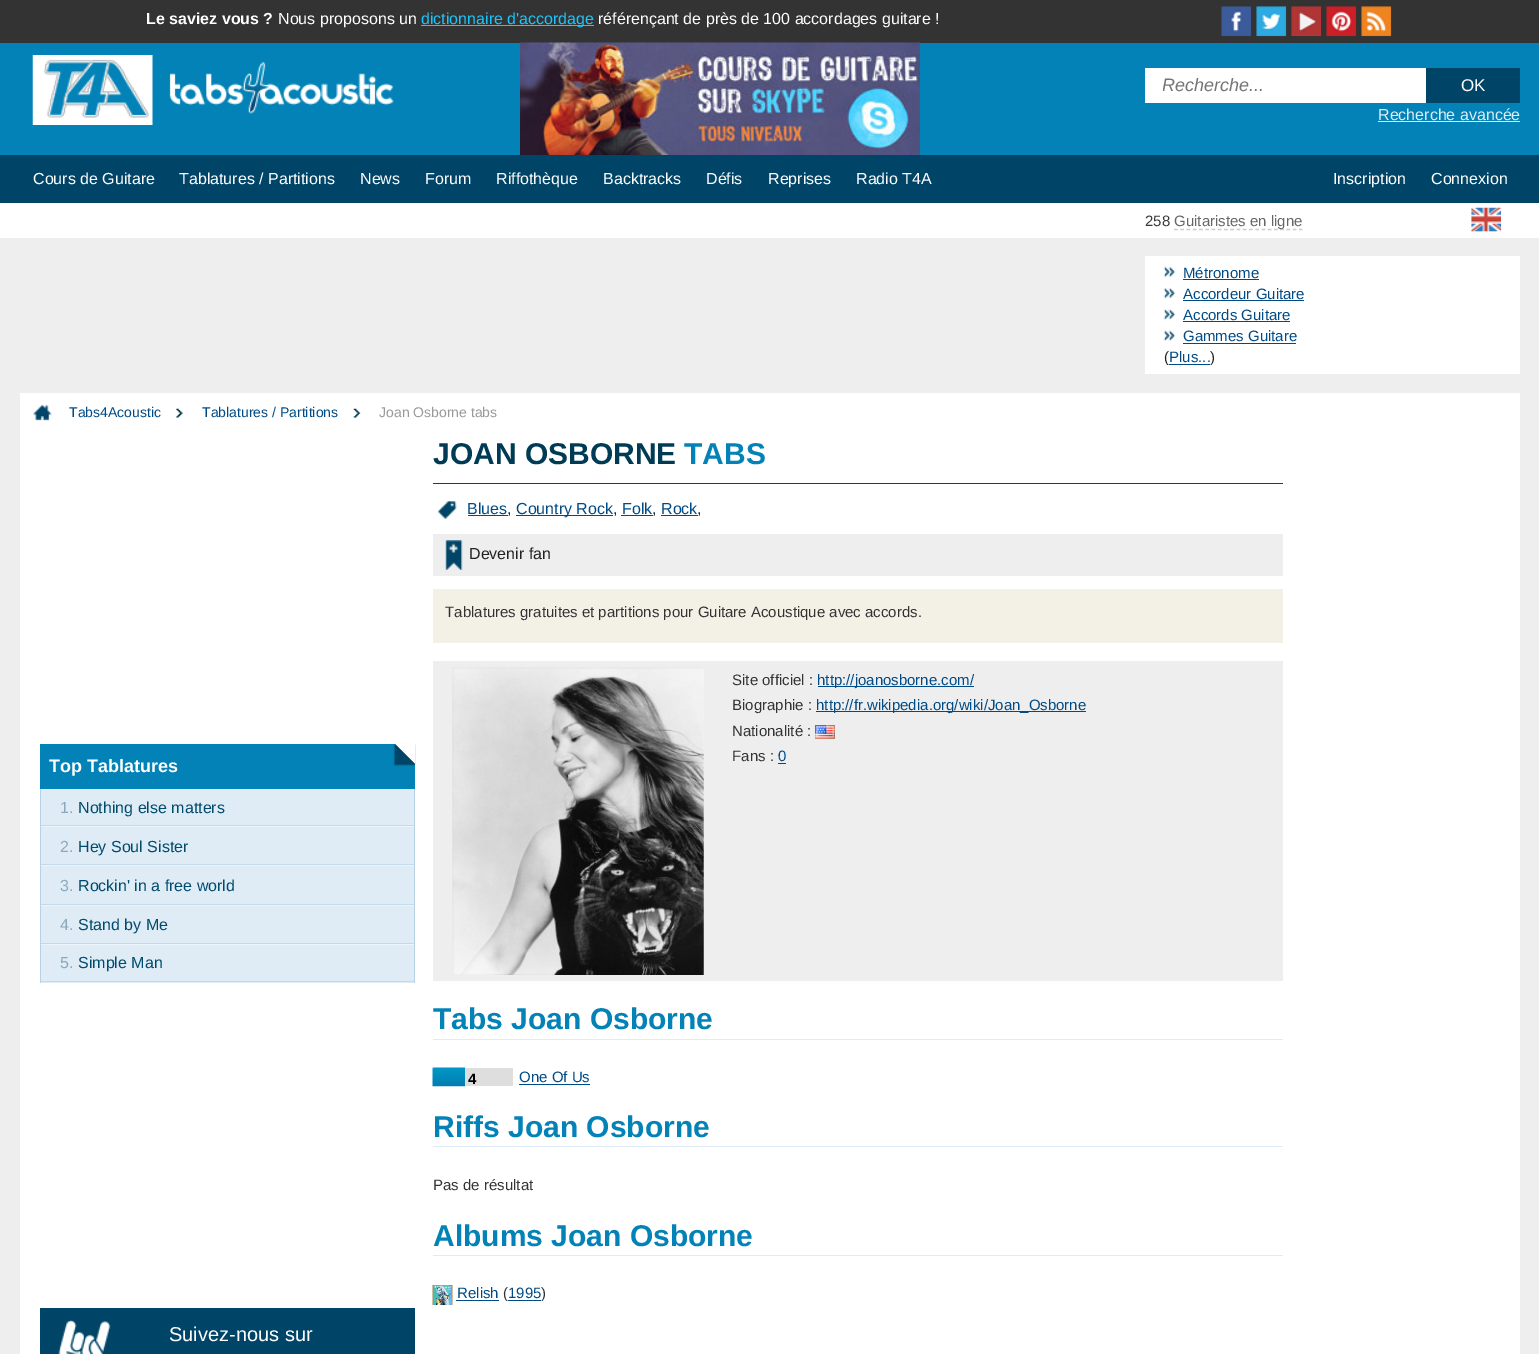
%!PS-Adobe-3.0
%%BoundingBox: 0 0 1539 1354
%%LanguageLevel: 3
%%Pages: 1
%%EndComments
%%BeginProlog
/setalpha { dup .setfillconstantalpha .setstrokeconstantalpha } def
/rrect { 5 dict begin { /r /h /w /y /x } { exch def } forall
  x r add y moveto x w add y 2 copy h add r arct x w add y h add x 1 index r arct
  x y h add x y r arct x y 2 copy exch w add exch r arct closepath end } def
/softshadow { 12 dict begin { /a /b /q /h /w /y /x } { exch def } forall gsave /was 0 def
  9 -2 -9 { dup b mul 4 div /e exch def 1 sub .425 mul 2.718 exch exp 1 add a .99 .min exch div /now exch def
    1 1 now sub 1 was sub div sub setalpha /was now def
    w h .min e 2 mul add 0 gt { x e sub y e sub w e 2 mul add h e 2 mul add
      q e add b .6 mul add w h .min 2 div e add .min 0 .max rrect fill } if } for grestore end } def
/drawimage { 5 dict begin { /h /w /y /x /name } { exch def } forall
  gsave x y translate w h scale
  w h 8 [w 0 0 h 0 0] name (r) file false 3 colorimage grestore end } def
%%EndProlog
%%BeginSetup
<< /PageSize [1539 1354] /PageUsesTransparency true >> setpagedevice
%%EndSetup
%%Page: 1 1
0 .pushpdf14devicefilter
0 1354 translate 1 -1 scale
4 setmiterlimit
0.933 setgray
0 0 1539 1354 rectfill
0.2 setgray
0 0 1539 43 rectfill
0.11 0.773 0.984 setrgbcolor
421 25 173 1 rectfill
(images/1.raw) 1221 6 31 31 drawimage
(images/2.raw) 1256 6 31 31 drawimage
(images/3.raw) 1291 6 31 31 drawimage
(images/4.raw) 1326 6 31 31 drawimage
(images/5.raw) 1361 6 31 31 drawimage
0.008 0.51 0.714 setrgbcolor
0 43 1539 112 rectfill
(images/6.raw) 32 55 362 70 drawimage
(images/7.raw) 520 42 400 113 drawimage
1 setgray
1145 68 281 35 rectfill
0 0.271 0.404 setrgbcolor
1426 68 94 35 rectfill
0.875 0.925 0.957 setrgbcolor
1378 121 142 1 rectfill
0 0.271 0.404 setrgbcolor
0 155 1539 48 rectfill
1 setgray
0 203 1539 35 rectfill
0.8 setgray
1.2 setlinewidth
[3.75 2.5] 0 setdash
newpath 1174 229.5 moveto 1302.5 229.5 lineto stroke
(images/8.raw) 1471 207 31 25 drawimage
1 setgray
1145 256 375 118 rectfill
(images/9.raw) 1163 266 13 12 drawimage
0 0.294 0.522 setrgbcolor
1183 279 76 1 rectfill
(images/10.raw) 1163 287 13 12 drawimage
1183 300 121 1 rectfill
(images/11.raw) 1163 309 13 11 drawimage
1183 321 107 1 rectfill
(images/12.raw) 1163 330 13 11 drawimage
1183 343 113 1 rectfill
1169 364 41 1 rectfill
1 setgray
20 393 1500 961 rectfill
(images/13.raw) 33 404 19 17 drawimage
(images/14.raw) 176 408 7 10 drawimage
(images/15.raw) 353 408 8 10 drawimage
0.008 0.51 0.714 setrgbcolor
40 744 375 45 rectfill
0 setgray
394 745 20 20 0 0.5 0.2 softshadow
395 745 20 20 0 0.5 0.3 softshadow
1 setgray
newpath 415 744 moveto 415 764 lineto 395 744 lineto closepath fill
0 0.271 0.404 setrgbcolor
newpath 415 764 moveto 395 764 lineto 395 744 lineto closepath fill
0.875 0.925 0.961 setrgbcolor
41 789 373 194 rectfill
0.718 0.824 0.894 setrgbcolor
414 789 1 194 rectfill
40 789 1 194 rectfill
0.765 0.855 0.918 setrgbcolor
41 825 373 1 rectfill
0.925 0.961 0.984 setrgbcolor
41 826 373 1 rectfill
0.765 0.855 0.918 setrgbcolor
41 864 373 1 rectfill
0.925 0.961 0.984 setrgbcolor
41 865 373 1 rectfill
0.765 0.855 0.918 setrgbcolor
41 904 373 1 rectfill
0.925 0.961 0.984 setrgbcolor
41 905 373 1 rectfill
0.765 0.855 0.918 setrgbcolor
41 943 373 1 rectfill
0.925 0.961 0.984 setrgbcolor
41 944 373 1 rectfill
0.765 0.855 0.918 setrgbcolor
41 981 373 1 rectfill
0 0.271 0.404 setrgbcolor
40 1308 375 46 rectfill
(images/16.raw) 58 1320 53 34 drawimage
433 483 850 1 rectfill
(images/17.raw) 437 501 20 18 drawimage
0 0.294 0.522 setrgbcolor
468 515 40 1 rectfill
516 515 97 1 rectfill
621 515 32 1 rectfill
661 515 37 1 rectfill
0.933 setgray
433 534 850 42 rectfill
(images/18.raw) 445 540 18 30 drawimage
0.953 0.941 0.902 setrgbcolor
433 589 850 54 rectfill
0.933 setgray
433 661 850 320 rectfill
(images/19.raw) 452 667 252 308 drawimage
0 0.294 0.522 setrgbcolor
818 686 156 1 rectfill
816 711 270 1 rectfill
(images/20.raw) 815 725 20 14 drawimage
778 763 8 1 rectfill
0.875 0.925 0.961 setrgbcolor
433 1039 850 1 rectfill
0.871 setgray
433 1068 80 18 rectfill
(images/21.raw) 432 1067 33 20 drawimage
0 0.294 0.522 setrgbcolor
519 1084 71 1 rectfill
0.875 0.925 0.961 setrgbcolor
433 1146 850 1 rectfill
433 1255 850 1 rectfill
(images/22.raw) 432 1285 21 20 drawimage
0 0.294 0.522 setrgbcolor
456 1300 43 1 rectfill
508 1300 33 1 rectfill
/LiberationSans-Bold [16 0 0 -16 0 0] selectfont
1 setgray
146 24 moveto (Le saviez vous ?) show
/LiberationSans-Regular [16 0 0 -16 0 0] selectfont
278 24 moveto (Nous proposons un) show
0.11 0.773 0.984 setrgbcolor
421 24 moveto (dictionnaire d'accordage) show
1 setgray
598 24 moveto (référençant de près de 100 accordages guitare !) show
gsave
1163 75 247 20 rectclip
/LiberationSans-Italic [18 0 0 -18 0 0] selectfont
0.459 setgray
1162 91 moveto (Recherche...) show
grestore
/LiberationSans-Regular [17 0 0 -17 0 0] selectfont
1461 91 moveto (OK) show
/LiberationSans-Regular [16 0 0 -16 0 0] selectfont
0.875 0.925 0.957 setrgbcolor
1378 120 moveto (Recherche avancée) show
1 setgray
33 184 moveto (Cours de Guitare) show
179 184 moveto (Tablatures / Partitions) show
360 184 moveto (News) show
425 184 moveto (Forum) show
496 184 moveto (Riffothèque) show
603 184 moveto (Backtracks) show
706 184 moveto (Défis) show
768 184 moveto (Reprises) show
856 184 moveto (Radio T4A) show
1333 184 moveto (Inscription) show
1431 184 moveto (Connexion) show
/LiberationSans-Regular [15 0 0 -15 0 0] selectfont
0.227 setgray
1145 226 moveto (258) show
0.4 setgray
1174 226 moveto (Guitaristes en ligne) show
0 0.294 0.522 setrgbcolor
1183 278 moveto (Métronome) show
1183 299 moveto (Accordeur Guitare) show
1183 320 moveto (Accords Guitare) show
1183 341 moveto (Gammes Guitare) show
0.133 setgray
1164 362 moveto (\() show
0 0.294 0.522 setrgbcolor
1169 362 moveto (Plus...) show
0.133 setgray
1210 362 moveto (\)) show
/LiberationSans-Regular [14 0 0 -14 0 0] selectfont
0 0.294 0.522 setrgbcolor
69 417 moveto (Tabs4Acoustic) show
202 417 moveto (Tablatures / Partitions) show
0.6 setgray
379 417 moveto (Joan Osborne tabs) show
/LiberationSans-Bold [18 0 0 -18 0 0] selectfont
1 setgray
49 772 moveto (Top Tablatures) show
/LiberationSans-Regular [16 0 0 -16 0 0] selectfont
0.541 0.663 0.749 setrgbcolor
60 813 moveto (1.) show
0 0.294 0.427 setrgbcolor
78 813 moveto (Nothing else matters) show
0.541 0.663 0.749 setrgbcolor
60 852 moveto (2.) show
0 0.294 0.427 setrgbcolor
78 852 moveto (Hey Soul Sister) show
0.541 0.663 0.749 setrgbcolor
60 891 moveto (3.) show
0 0.294 0.427 setrgbcolor
78 891 moveto (Rockin' in a free world) show
0.541 0.663 0.749 setrgbcolor
60 930 moveto (4.) show
0 0.294 0.427 setrgbcolor
78 930 moveto (Stand by Me) show
0.541 0.663 0.749 setrgbcolor
60 968 moveto (5.) show
0 0.294 0.427 setrgbcolor
78 968 moveto (Simple Man) show
/LiberationSans-Regular [20 0 0 -20 0 0] selectfont
1 setgray
169 1341 moveto (Suivez-nous sur) show
/LiberationSans-Bold [30 0 0 -30 0 0] selectfont
0 0.231 0.333 setrgbcolor
433 464 moveto (JOAN OSBORNE) show
0.008 0.51 0.714 setrgbcolor
684 464 moveto (TABS) show
/LiberationSans-Regular [16 0 0 -16 0 0] selectfont
0 0.294 0.522 setrgbcolor
467 514 moveto (Blues) show
0.133 setgray
507 514 moveto (,) show
0 0.294 0.522 setrgbcolor
516 514 moveto (Country Rock) show
0.133 setgray
613 514 moveto (,) show
0 0.294 0.522 setrgbcolor
622 514 moveto (Folk) show
0.133 setgray
652 514 moveto (,) show
0 0.294 0.522 setrgbcolor
661 514 moveto (Rock) show
0.133 setgray
697 514 moveto (,) show
469 559 moveto (Devenir fan) show
/LiberationSans-Regular [15 0 0 -15 0 0] selectfont
0.2 setgray
445 617 moveto (Tablatures gratuites et partitions pour Guitare Acoustique avec accords.) show
732 685 moveto (Site officiel :) show
0 0.294 0.522 setrgbcolor
817 685 moveto (http://joanosborne.com/) show
0.2 setgray
732 710 moveto (Biographie :) show
0 0.294 0.522 setrgbcolor
816 710 moveto (http://fr.wikipedia.org/wiki/Joan_Osborne) show
0.2 setgray
732 736 moveto (Nationalité :) show
732 761 moveto (Fans :) show
0 0.294 0.522 setrgbcolor
778 761 moveto (0) show
/LiberationSans-Bold [30 0 0 -30 0 0] selectfont
0.008 0.51 0.714 setrgbcolor
433 1029 moveto (Tabs Joan Osborne) show
/LiberationSans-Bold [15 0 0 -15 0 0] selectfont
0 setgray
468 1084 moveto (4) show
/LiberationSans-Regular [15 0 0 -15 0 0] selectfont
0 0.294 0.522 setrgbcolor
519 1082 moveto (One Of Us) show
/LiberationSans-Bold [30 0 0 -30 0 0] selectfont
0.008 0.51 0.714 setrgbcolor
433 1137 moveto (Riffs Joan Osborne) show
/LiberationSans-Regular [15 0 0 -15 0 0] selectfont
0.2 setgray
433 1190 moveto (Pas de résultat) show
/LiberationSans-Bold [30 0 0 -30 0 0] selectfont
0.008 0.51 0.714 setrgbcolor
433 1246 moveto (Albums Joan Osborne) show
/LiberationSans-Regular [15 0 0 -15 0 0] selectfont
0 0.294 0.522 setrgbcolor
457 1298 moveto (Relish) show
0.2 setgray
503 1298 moveto (\() show
0 0.294 0.522 setrgbcolor
508 1298 moveto (1995) show
0.2 setgray
541 1298 moveto (\)) show
.poppdf14devicefilter showpage
%%EOF
